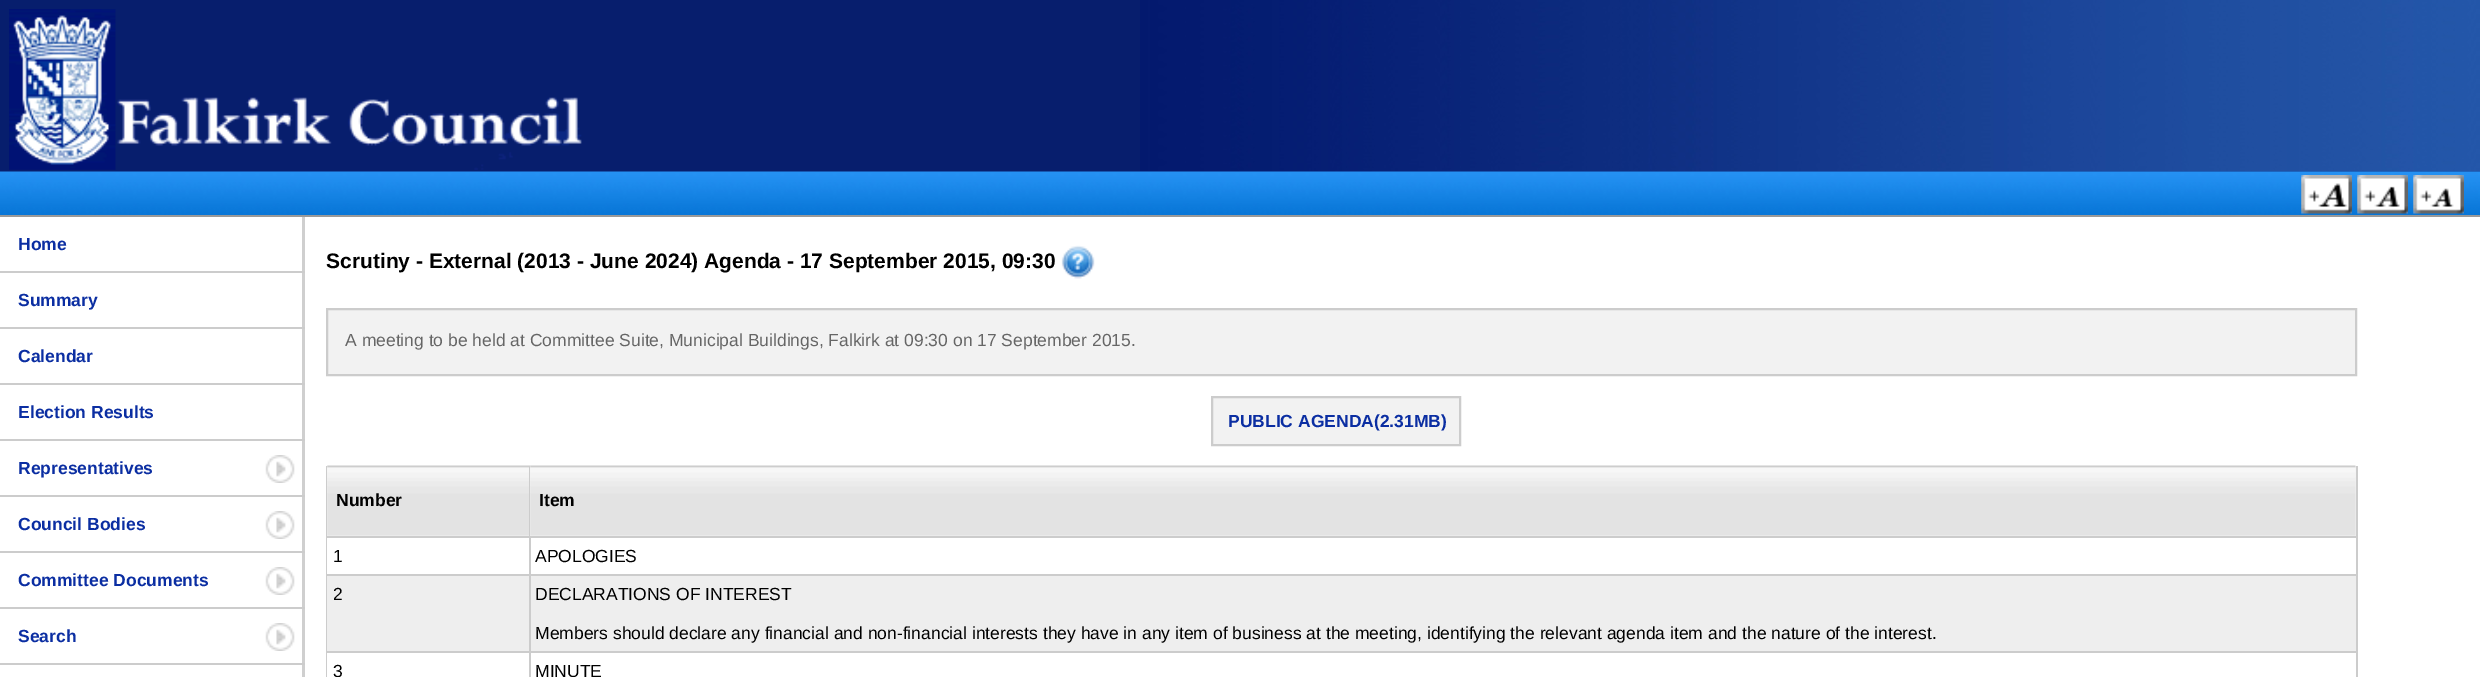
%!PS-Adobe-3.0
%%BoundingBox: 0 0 2480 677
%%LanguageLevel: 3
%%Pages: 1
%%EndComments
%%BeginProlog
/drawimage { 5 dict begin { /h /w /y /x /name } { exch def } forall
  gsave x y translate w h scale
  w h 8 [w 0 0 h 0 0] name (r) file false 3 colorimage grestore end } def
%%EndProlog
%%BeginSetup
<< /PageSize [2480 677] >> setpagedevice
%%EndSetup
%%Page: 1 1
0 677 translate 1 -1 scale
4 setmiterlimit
1 setgray
0 0 2480 677 rectfill
0.812 setgray
302 217 3 460 rectfill
0.027 0.118 0.427 setrgbcolor
0 0 2480 172 rectfill
(images/1.raw) 1140 0 1340 172 drawimage
(images/2.raw) 9 9 573 161 drawimage
(images/3.raw) 0 171 2480 44 drawimage
0.6 setgray
0 215 2480 2 rectfill
(images/4.raw) 2301 175 51 39 drawimage
(images/5.raw) 2357 175 51 39 drawimage
(images/6.raw) 2413 175 51 39 drawimage
0.8 setgray
0 271 305 2 rectfill
0 327 305 2 rectfill
0 383 305 2 rectfill
0 439 305 2 rectfill
(images/7.raw) 265 455 30 28 drawimage
0 495 305 2 rectfill
(images/7.raw) 265 511 30 28 drawimage
0 551 305 2 rectfill
(images/7.raw) 265 567 30 28 drawimage
0 607 305 2 rectfill
(images/7.raw) 265 623 30 28 drawimage
0 663 305 2 rectfill
(images/8.raw) 1061 245 34 34 drawimage
0.949 setgray
newpath 327 309 moveto 2356 309 lineto 2356 375 lineto 327 375 lineto closepath gsave fill grestore
0.8 setgray
2 setlinewidth
stroke
0.949 setgray
newpath 1212 397 moveto 1460 397 lineto 1460 445 lineto 1212 445 lineto closepath gsave fill grestore
0.8 setgray
stroke
2356 466 2 211 rectfill
326 466 1 211 rectfill
0.949 setgray
327 466 202 70 rectfill
(images/9.raw) 327 465 204 71 drawimage
0.8 setgray
529 466 1 70 rectfill
0.949 setgray
530 466 1826 70 rectfill
(images/10.raw) 530 465 1826 71 drawimage
0.8 setgray
327 536 203 2 rectfill
529 536 2 38 rectfill
530 536 1826 2 rectfill
0.933 setgray
327 576 2029 75 rectfill
0.8 setgray
327 574 203 2 rectfill
529 574 2 77 rectfill
530 574 1826 2 rectfill
327 651 203 2 rectfill
529 651 2 26 rectfill
530 651 1826 2 rectfill
/LiberationSans-Bold [17.5 0 0 -17.5 0 0] selectfont
0.043 0.18 0.635 setrgbcolor
18 250 moveto (Home) show
18 306 moveto (Summary) show
18 362 moveto (Calendar) show
18 418 moveto (Election Results) show
18 474 moveto (Representatives) show
18 530 moveto (Council Bodies) show
18 586 moveto (Committee Documents) show
18 642 moveto (Search) show
/LiberationSans-Bold [21 0 0 -21 0 0] selectfont
0 setgray
326 268 moveto (Scrutiny - External \(2013 - June 2024\) Agenda - 17 September 2015, 09:30) show
/LiberationSans-Regular [17.5 0 0 -17.5 0 0] selectfont
0.4 setgray
345 346 moveto (A meeting to be held at Committee Suite, Municipal Buildings, Falkirk at 09:30 on 17 September 2015.) show
/LiberationSans-Bold [17.5 0 0 -17.5 0 0] selectfont
0.043 0.18 0.635 setrgbcolor
1228 427 moveto (PUBLIC AGENDA\(2.31MB\)) show
0 setgray
336 506 moveto (Number) show
539 506 moveto (Item) show
/LiberationSans-Regular [17.5 0 0 -17.5 0 0] selectfont
333 562 moveto (1) show
535 562 moveto (APOLOGIES) show
333 600 moveto (2) show
535 600 moveto (DECLARATIONS OF INTEREST) show
535 639 moveto (Members should declare any financial and non-financial interests they have in any item of business at the meeting, identifying the relevant agenda item and the nature of the interest.) show
333 677 moveto (3) show
535 677 moveto (MINUTE) show
showpage
%%EOF
